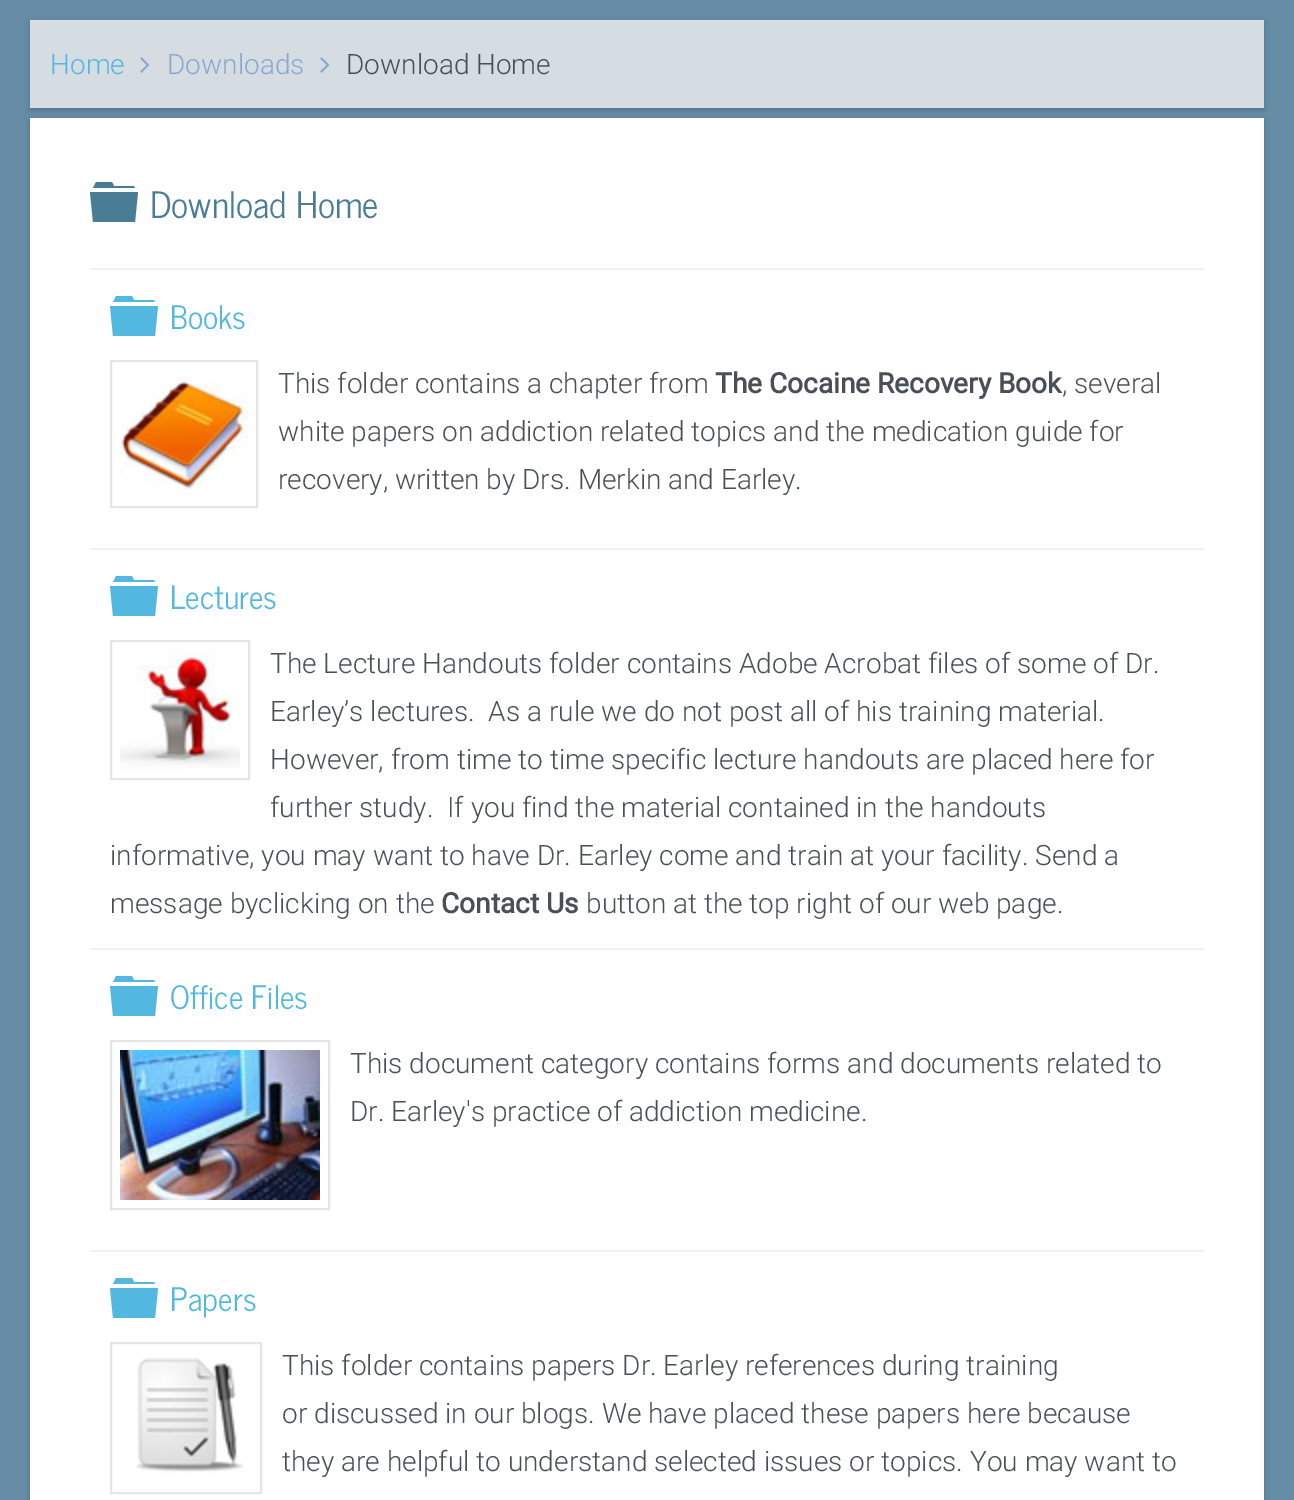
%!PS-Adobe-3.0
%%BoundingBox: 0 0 1294 1500
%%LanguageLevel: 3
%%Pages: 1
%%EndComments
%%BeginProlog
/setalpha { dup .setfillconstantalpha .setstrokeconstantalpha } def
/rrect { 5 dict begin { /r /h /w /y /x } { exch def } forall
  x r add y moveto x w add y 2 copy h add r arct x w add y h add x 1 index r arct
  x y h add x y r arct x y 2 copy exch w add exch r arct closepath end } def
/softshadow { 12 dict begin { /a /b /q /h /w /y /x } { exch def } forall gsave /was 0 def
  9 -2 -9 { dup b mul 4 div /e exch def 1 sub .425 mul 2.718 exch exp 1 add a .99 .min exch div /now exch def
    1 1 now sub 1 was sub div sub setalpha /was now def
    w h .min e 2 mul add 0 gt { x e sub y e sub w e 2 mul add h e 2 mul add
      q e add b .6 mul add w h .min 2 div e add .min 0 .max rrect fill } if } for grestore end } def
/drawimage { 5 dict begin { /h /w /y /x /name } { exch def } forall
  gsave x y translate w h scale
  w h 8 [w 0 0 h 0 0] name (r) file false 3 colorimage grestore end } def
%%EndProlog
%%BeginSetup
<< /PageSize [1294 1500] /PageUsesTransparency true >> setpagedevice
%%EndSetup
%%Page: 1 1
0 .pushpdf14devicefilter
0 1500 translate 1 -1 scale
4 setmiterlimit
0.404 0.549 0.651 setrgbcolor
0 0 1294 1500 rectfill
0.118 0.196 0.275 setrgbcolor
30 120 1234 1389 0 3 0.3 softshadow
1 setgray
30 118 1234 1382 rectfill
0.118 0.196 0.275 setrgbcolor
30 22 1234 88 0 3 0.3 softshadow
0.839 0.867 0.886 setrgbcolor
30 20 1234 88 rectfill
(images/1.raw) 140 57 10 16 drawimage
(images/1.raw) 320 57 10 16 drawimage
0.286 0.486 0.584 setrgbcolor
newpath 90 192 moveto 138 192 lineto 135 222 lineto 93 222 lineto closepath 134 186 moveto 135 188 lineto 93 188 lineto 96 182 lineto 112 182 lineto 114 186 lineto closepath fill
0.949 setgray
90 268 1114 2 rectfill
90 548 1114 2 rectfill
0.322 0.722 0.875 setrgbcolor
newpath 110 306 moveto 158 306 lineto 155 336 lineto 113 336 lineto closepath 154 300 moveto 155 302 lineto 113 302 lineto 116 296 lineto 132 296 lineto 134 300 lineto closepath fill
0.898 setgray
2 setlinewidth
111 361 146 146 rectstroke
(images/2.raw) 120 370 128 128 drawimage
0.949 setgray
90 948 1114 2 rectfill
0.322 0.722 0.875 setrgbcolor
newpath 110 586 moveto 158 586 lineto 155 616 lineto 113 616 lineto closepath 154 580 moveto 155 582 lineto 113 582 lineto 116 576 lineto 132 576 lineto 134 580 lineto closepath fill
0.898 setgray
111 641 138 138 rectstroke
(images/3.raw) 120 650 120 119 drawimage
0.949 setgray
90 1250 1114 2 rectfill
0.322 0.722 0.875 setrgbcolor
newpath 110 986 moveto 158 986 lineto 155 1016 lineto 113 1016 lineto closepath 154 980 moveto 155 982 lineto 113 982 lineto 116 976 lineto 132 976 lineto 134 980 lineto closepath fill
0.898 setgray
111 1041 218 168 rectstroke
(images/4.raw) 120 1050 200 150 drawimage
0.322 0.722 0.875 setrgbcolor
newpath 110 1288 moveto 158 1288 lineto 155 1318 lineto 113 1318 lineto closepath 154 1282 moveto 155 1284 lineto 113 1284 lineto 116 1278 lineto 132 1278 lineto 134 1282 lineto closepath fill
0.898 setgray
111 1343 150 150 rectstroke
(images/5.raw) 135 1357 109 116 drawimage
/Roboto-Light [28 0 0 -28 0 0] selectfont
0.322 0.722 0.875 setrgbcolor
50 74 moveto (Home) show
0.541 0.655 0.812 setrgbcolor
167 74 moveto (Downloads) show
0.29 0.31 0.337 setrgbcolor
346 74 moveto (Download Home) show
/NewsCycle-Regular [36 0 0 -36 0 0] selectfont
0.286 0.486 0.584 setrgbcolor
150 218 moveto (Download Home) show
/NewsCycle-Regular [32 0 0 -32 0 0] selectfont
0.322 0.722 0.875 setrgbcolor
170 329 moveto (Books) show
/Roboto-Light [28 0 0 -28 0 0] selectfont
0.29 0.31 0.337 setrgbcolor
278 393 moveto (This folder contains a chapter from) show
/Roboto-Bold [28 0 0 -28 0 0] selectfont
715 393 moveto (The Cocaine Recovery Book) show
/Roboto-Light [28 0 0 -28 0 0] selectfont
1062 393 moveto (, several) show
278 441 moveto (white papers on addiction related topics and the medication guide for) show
278 489 moveto (recovery, written by Drs. Merkin and Earley.) show
/NewsCycle-Regular [32 0 0 -32 0 0] selectfont
0.322 0.722 0.875 setrgbcolor
170 609 moveto (Lectures) show
/Roboto-Light [28 0 0 -28 0 0] selectfont
0.29 0.31 0.337 setrgbcolor
270 673 moveto (The Lecture Handouts folder contains Adobe Acrobat files of some of Dr.) show
270 721 moveto (Earley’s lectures.  As a rule we do not post all of his training material.) show
270 769 moveto (However, from time to time specific lecture handouts are placed here for) show
270 817 moveto (further study.  If you find the material contained in the handouts) show
110 865 moveto (informative, you may want to have Dr. Earley come and train at your facility. Send a) show
110 913 moveto (message byclicking on the) show
/Roboto-Bold [28 0 0 -28 0 0] selectfont
441 913 moveto (Contact Us) show
/Roboto-Light [28 0 0 -28 0 0] selectfont
586 913 moveto (button at the top right of our web page.) show
/NewsCycle-Regular [32 0 0 -32 0 0] selectfont
0.322 0.722 0.875 setrgbcolor
170 1009 moveto (Office Files) show
/Roboto-Light [28 0 0 -28 0 0] selectfont
0.29 0.31 0.337 setrgbcolor
350 1073 moveto (This document category contains forms and documents related to) show
350 1121 moveto (Dr. Earley's practice of addiction medicine.) show
/NewsCycle-Regular [32 0 0 -32 0 0] selectfont
0.322 0.722 0.875 setrgbcolor
170 1311 moveto (Papers) show
/Roboto-Light [28 0 0 -28 0 0] selectfont
0.29 0.31 0.337 setrgbcolor
282 1375 moveto (This folder contains papers Dr. Earley references during training) show
282 1423 moveto (or discussed in our blogs. We have placed these papers here because) show
282 1471 moveto (they are helpful to understand selected issues or topics. You may want to) show
.poppdf14devicefilter showpage
%%EOF
